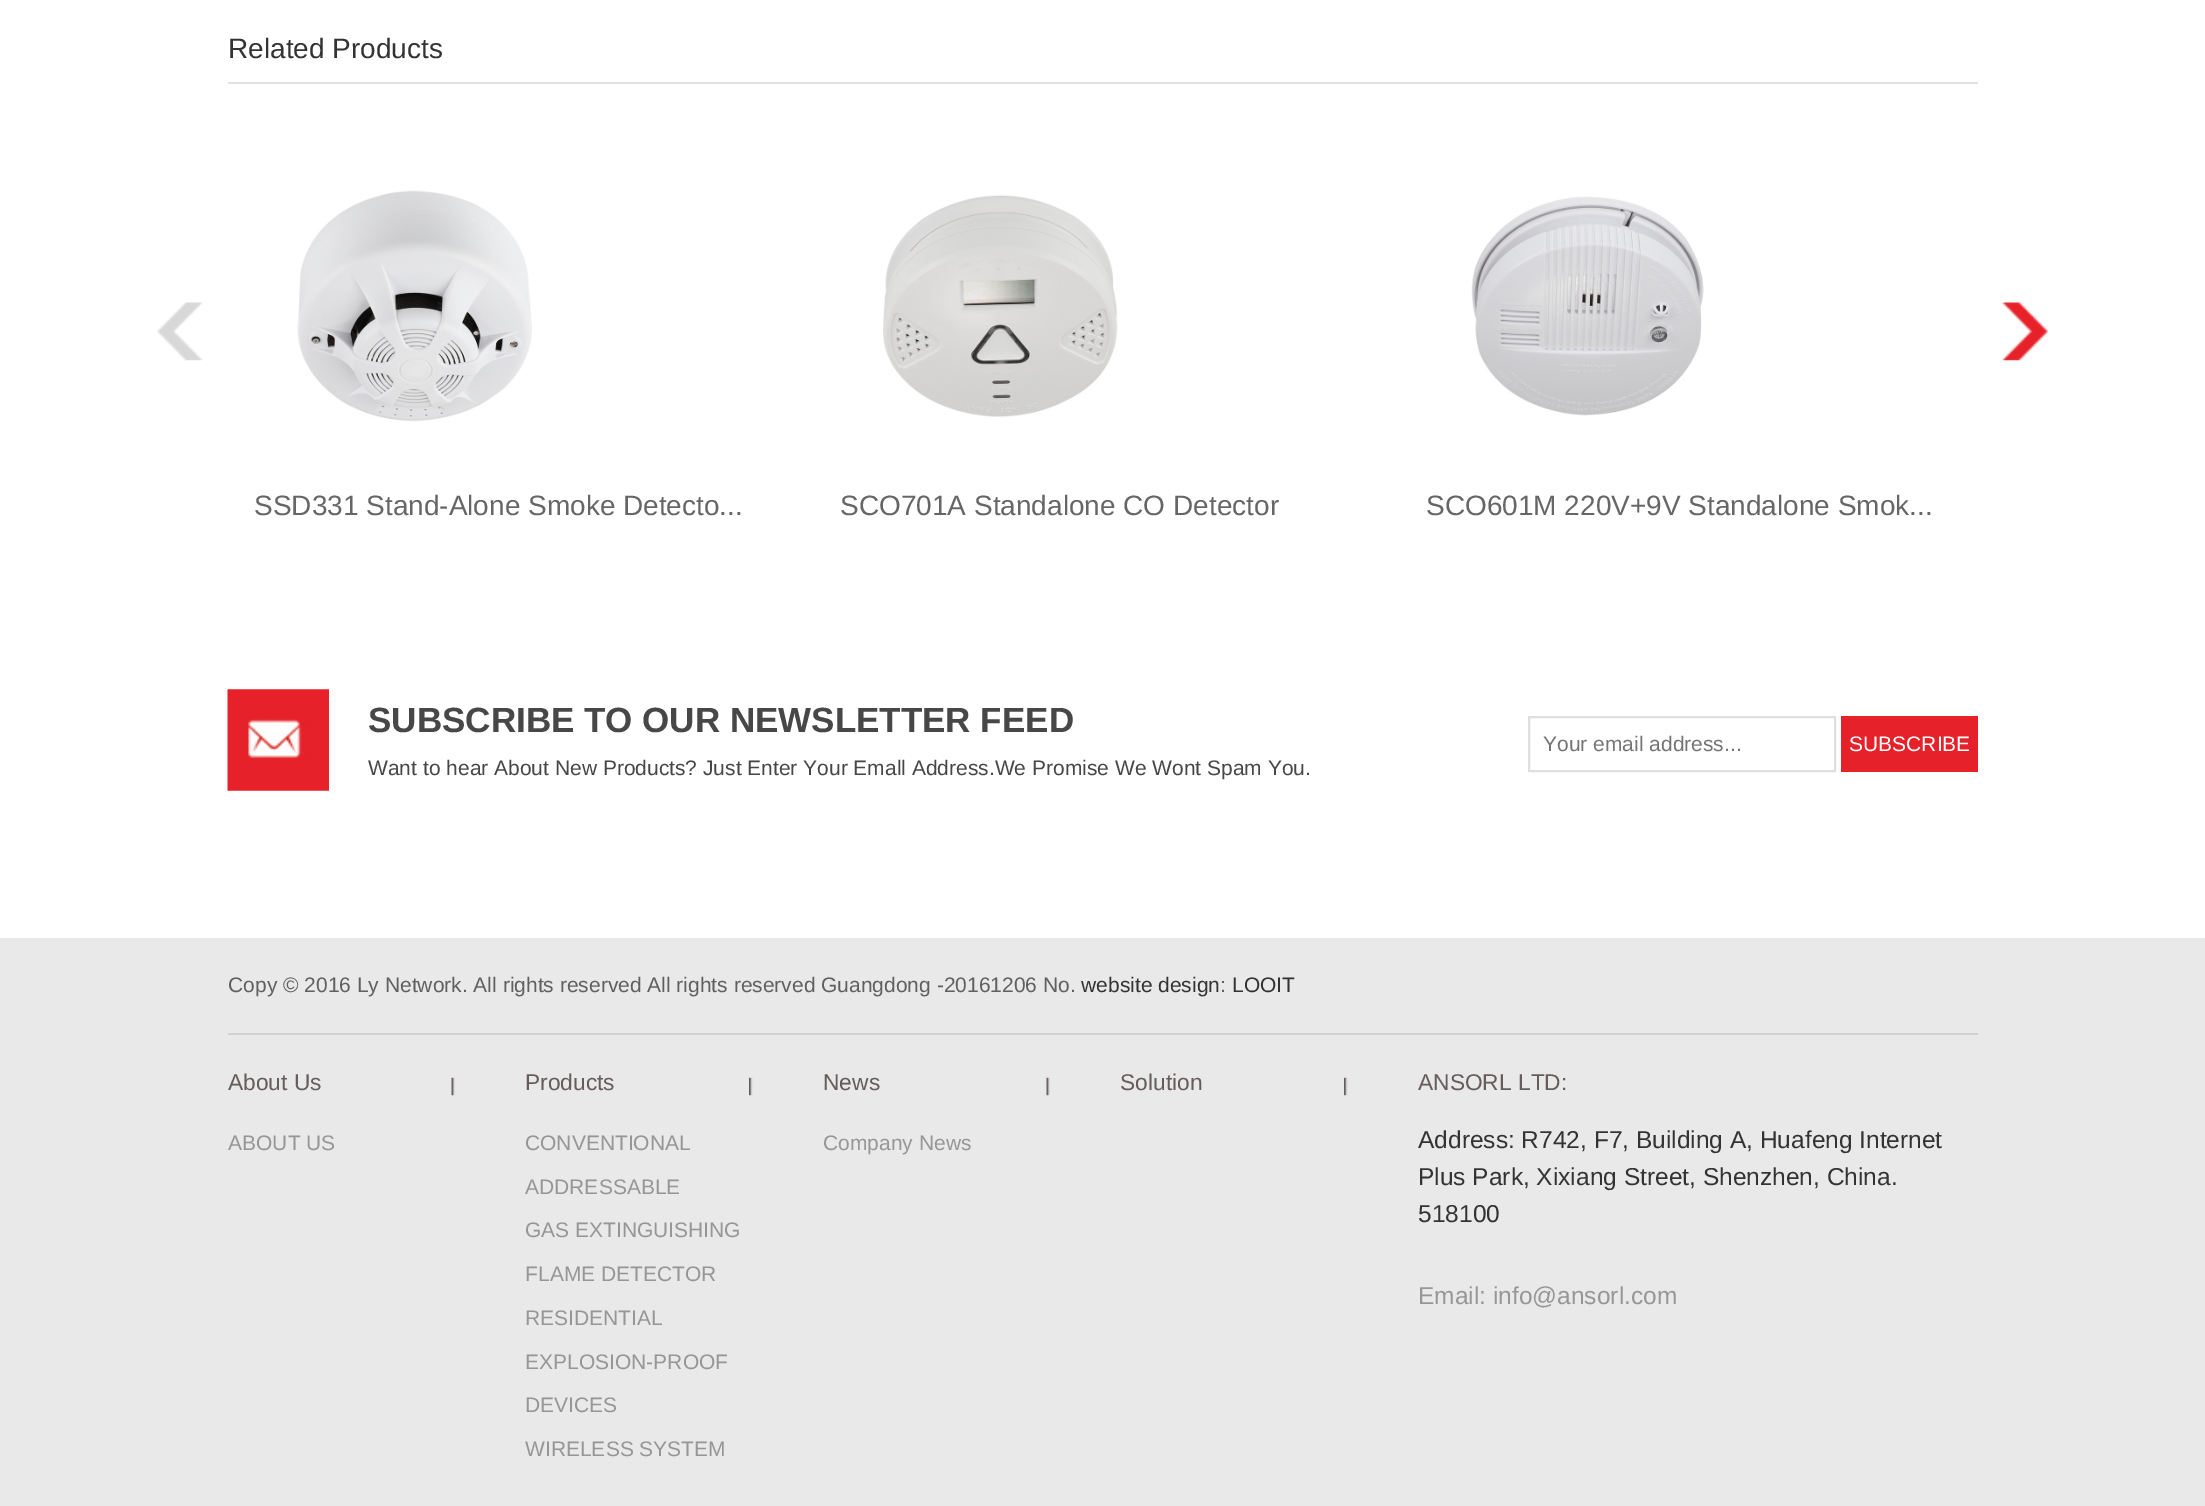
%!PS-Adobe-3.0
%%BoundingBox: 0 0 2205 1506
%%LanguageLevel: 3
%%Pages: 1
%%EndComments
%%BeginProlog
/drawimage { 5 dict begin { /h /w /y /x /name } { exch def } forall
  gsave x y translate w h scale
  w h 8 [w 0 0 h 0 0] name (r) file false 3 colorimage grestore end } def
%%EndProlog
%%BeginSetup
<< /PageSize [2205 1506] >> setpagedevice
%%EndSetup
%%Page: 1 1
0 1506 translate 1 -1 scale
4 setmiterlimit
1 setgray
0 0 2205 1506 rectfill
0.886 setgray
228 82 1750 2 rectfill
(images/1.raw) 157 302 46 59 drawimage
(images/2.raw) 2002 302 46 59 drawimage
(images/3.raw) 297 190 235 232 drawimage
(images/4.raw) 883 195 235 222 drawimage
(images/5.raw) 1471 196 233 220 drawimage
(images/6.raw) 227 689 102 102 drawimage
0.875 setgray
2 setlinewidth
1529 717 306 54 rectstroke
0.902 0.129 0.161 setrgbcolor
1841 716 137 56 rectfill
0.914 setgray
0 938 2205 568 rectfill
0.82 setgray
228 1033 1750 2 rectfill
(images/7.raw) 451 1077 4 19 drawimage
(images/8.raw) 749 1077 4 19 drawimage
(images/7.raw) 1046 1077 4 19 drawimage
(images/8.raw) 1344 1077 4 19 drawimage
/LiberationSans-Regular [28 0 0 -28 0 0] selectfont
0.2 setgray
228 58 moveto (Related Products) show
0.4 setgray
254 515 moveto (SSD331 Stand-Alone Smoke Detecto...) show
840 515 moveto (SCO701A Standalone CO Detector) show
1426 515 moveto (SCO601M 220V+9V Standalone Smok...) show
/LiberationSans-Bold [35 0 0 -35 0 0] selectfont
0.278 setgray
368 732 moveto (SUBSCRIBE TO OUR NEWSLETTER FEED) show
/LiberationSans-Regular [21 0 0 -21 0 0] selectfont
368 775 moveto (Want to hear About New Products? Just Enter Your Emall Address.We Promise We Wont Spam You.) show
0.459 setgray
1543 751 moveto (Your email address...) show
1 setgray
1849 751 moveto (SUBSCRIBE) show
0.376 setgray
228 992 moveto (Copy © 2016 Ly Network. All rights reserved All rights reserved Guangdong -20161206 No.) show
0.2 setgray
1081 992 moveto (website design) show
0.376 setgray
1220 992 moveto (:) show
0.2 setgray
1232 992 moveto (LOOIT) show
/LiberationSans-Regular [22.75 0 0 -22.75 0 0] selectfont
0.4 0.361 0.361 setrgbcolor
228 1090 moveto (About Us) show
/LiberationSans-Regular [21 0 0 -21 0 0] selectfont
0.588 setgray
228 1150 moveto (ABOUT US) show
/LiberationSans-Regular [22.75 0 0 -22.75 0 0] selectfont
0.4 0.361 0.361 setrgbcolor
525 1090 moveto (Products) show
/LiberationSans-Regular [21 0 0 -21 0 0] selectfont
0.588 setgray
525 1150 moveto (CONVENTIONAL) show
525 1194 moveto (ADDRESSABLE) show
525 1237 moveto (GAS EXTINGUISHING) show
525 1281 moveto (FLAME DETECTOR) show
525 1325 moveto (RESIDENTIAL) show
525 1369 moveto (EXPLOSION-PROOF) show
525 1412 moveto (DEVICES) show
525 1456 moveto (WIRELESS SYSTEM) show
/LiberationSans-Regular [22.75 0 0 -22.75 0 0] selectfont
0.4 0.361 0.361 setrgbcolor
823 1090 moveto (News) show
/LiberationSans-Regular [21 0 0 -21 0 0] selectfont
0.588 setgray
823 1150 moveto (Company News) show
/LiberationSans-Regular [22.75 0 0 -22.75 0 0] selectfont
0.4 0.361 0.361 setrgbcolor
1120 1090 moveto (Solution) show
1418 1090 moveto (ANSORL LTD:) show
/LiberationSans-Regular [24.5 0 0 -24.5 0 0] selectfont
0.2 setgray
1418 1148 moveto (Address: R742, F7, Building A, Huafeng Internet) show
1418 1185 moveto (Plus Park, Xixiang Street, Shenzhen, China.) show
1418 1222 moveto (518100) show
0.588 setgray
1418 1304 moveto (Email: info@ansorl.com) show
showpage
%%EOF
